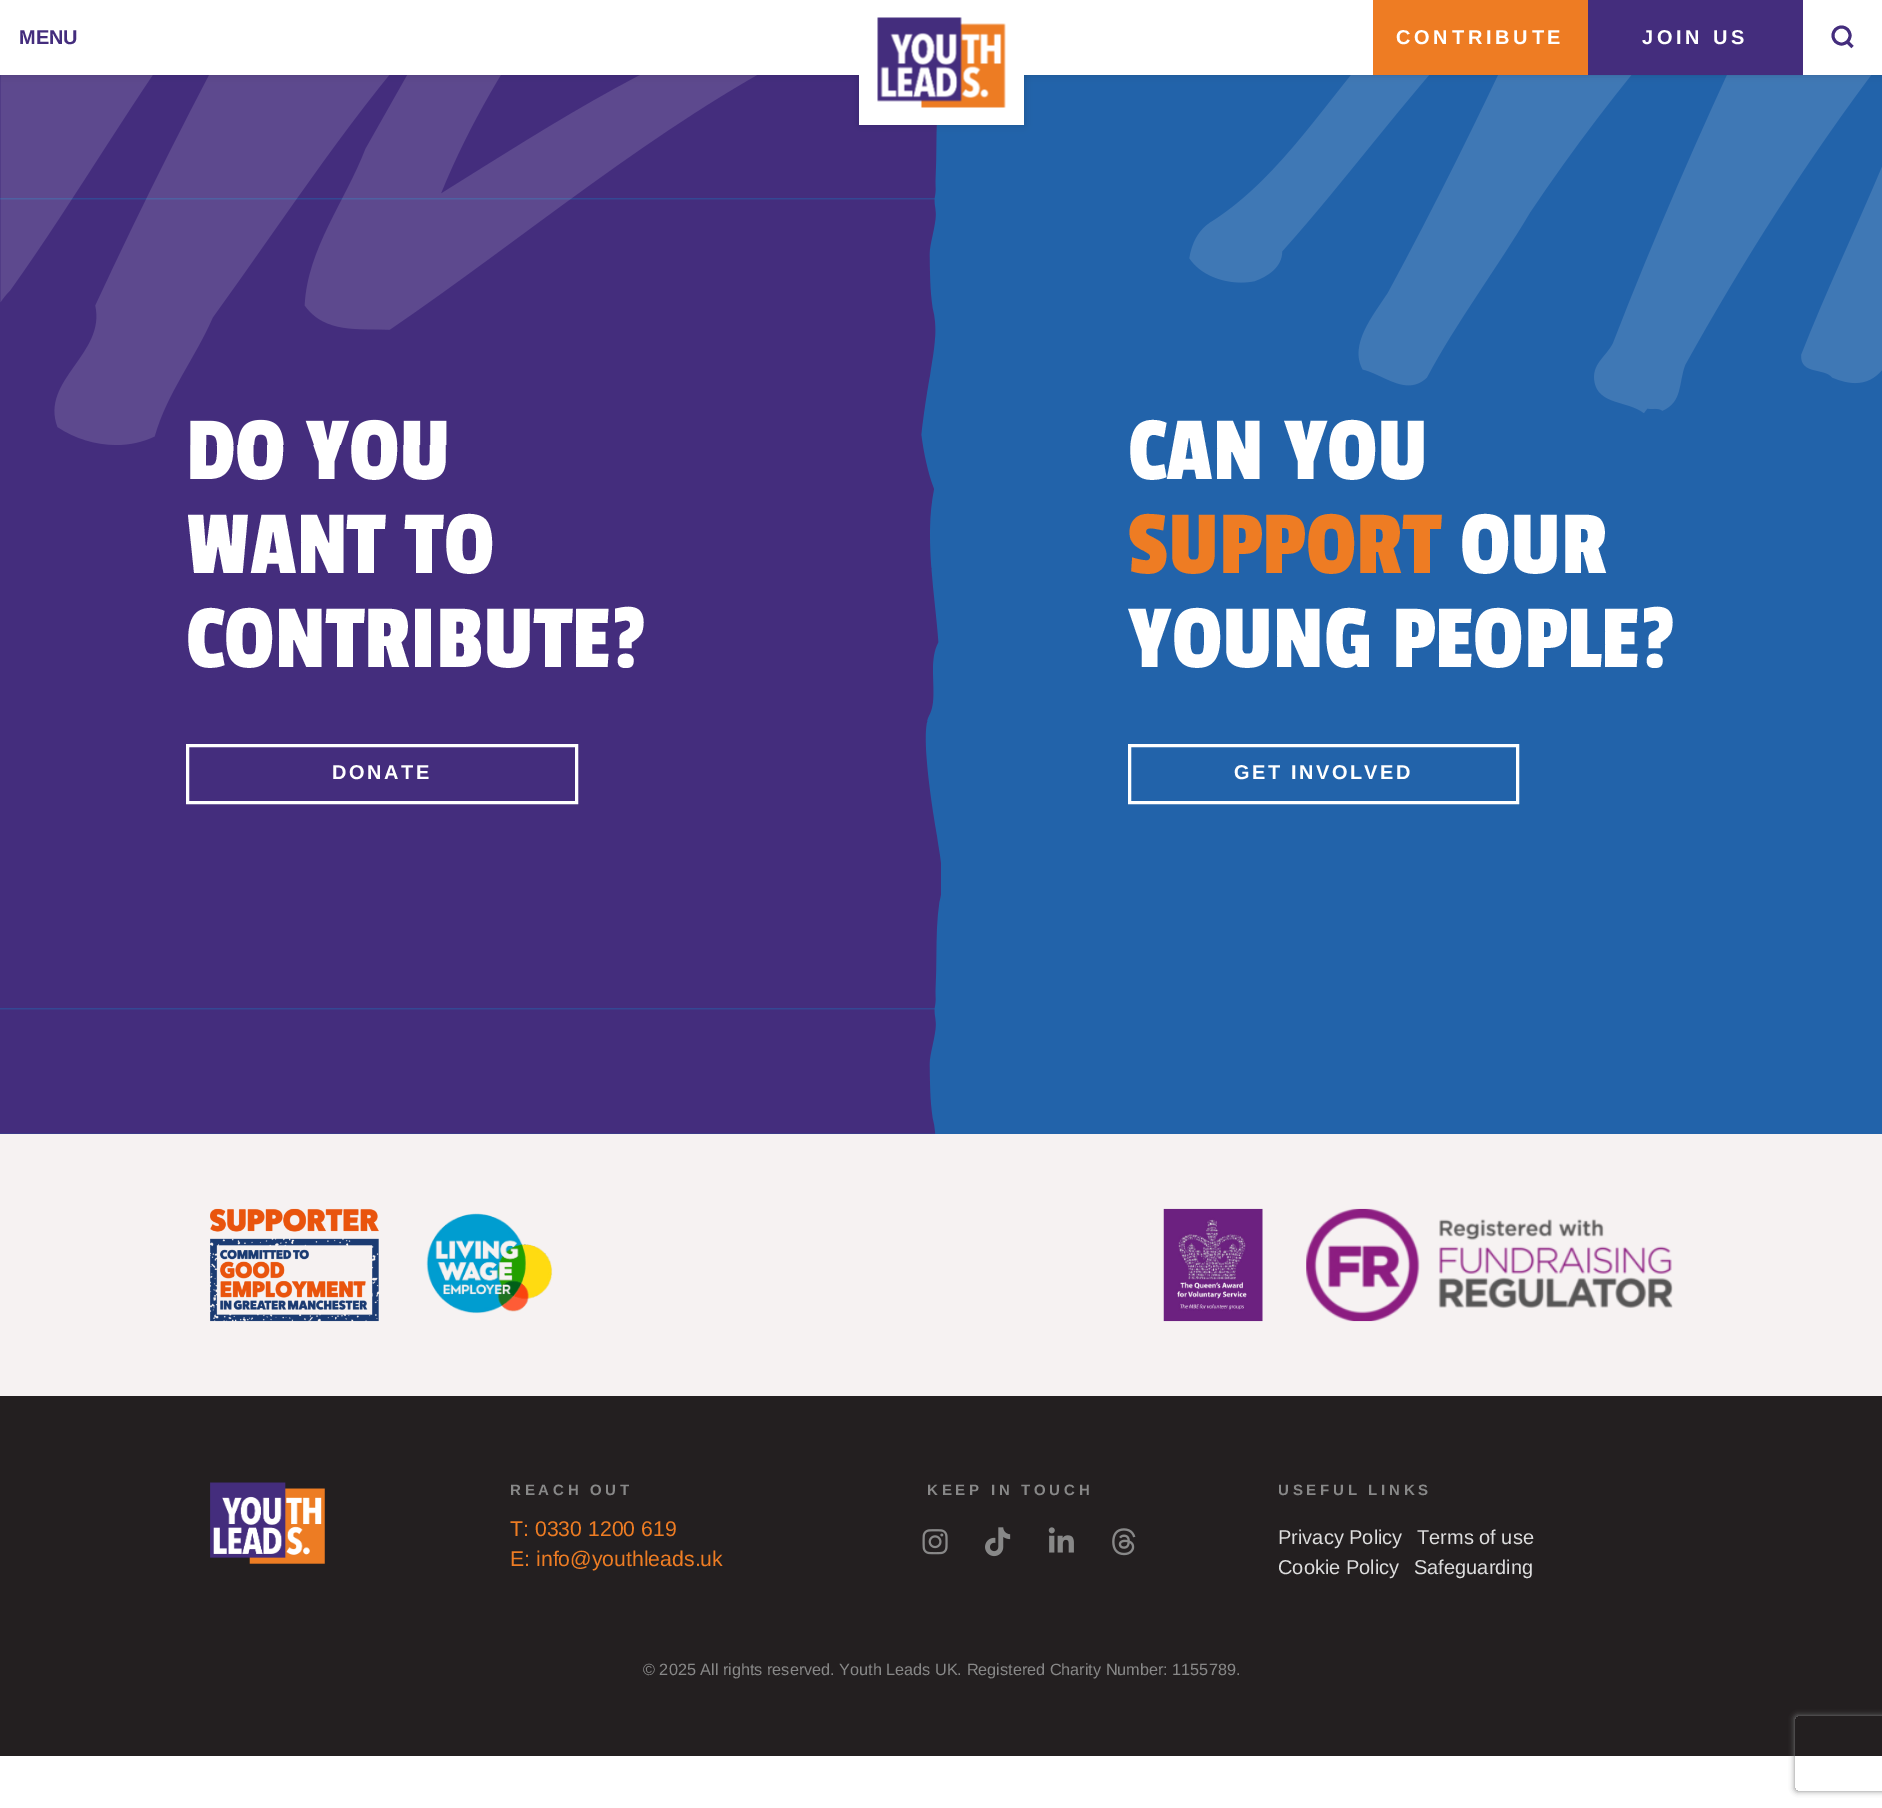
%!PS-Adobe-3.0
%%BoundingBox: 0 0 1882 1808
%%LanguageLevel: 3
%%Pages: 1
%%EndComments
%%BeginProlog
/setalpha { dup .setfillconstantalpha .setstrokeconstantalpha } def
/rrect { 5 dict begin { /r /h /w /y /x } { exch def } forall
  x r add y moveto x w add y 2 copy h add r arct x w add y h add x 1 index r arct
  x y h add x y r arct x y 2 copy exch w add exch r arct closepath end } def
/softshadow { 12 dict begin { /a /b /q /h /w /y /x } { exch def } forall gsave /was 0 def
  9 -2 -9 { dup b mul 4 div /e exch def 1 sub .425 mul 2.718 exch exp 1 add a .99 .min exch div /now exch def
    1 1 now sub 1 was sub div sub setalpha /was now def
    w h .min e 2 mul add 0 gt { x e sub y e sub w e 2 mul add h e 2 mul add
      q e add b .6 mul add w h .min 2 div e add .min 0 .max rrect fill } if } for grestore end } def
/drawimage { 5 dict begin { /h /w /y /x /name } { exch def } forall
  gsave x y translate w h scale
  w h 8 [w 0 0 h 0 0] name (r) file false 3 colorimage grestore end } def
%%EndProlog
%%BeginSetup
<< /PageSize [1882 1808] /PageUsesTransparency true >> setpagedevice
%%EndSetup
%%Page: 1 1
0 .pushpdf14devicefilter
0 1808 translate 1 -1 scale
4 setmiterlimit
1 setgray
0 0 1882 1808 rectfill
0.133 0.388 0.667 setrgbcolor
0 125 941 1009 rectfill
(images/2.raw) 0 75 941 1059 drawimage
941 75 941 1059 rectfill
0 setgray
859 0 165 125 0 4 0.16 softshadow
1 setgray
3 setlinewidth
187.5 745.5 389 57 rectstroke
(images/4.raw) 1189 75 693 338 drawimage
1129.5 745.5 388 57 rectstroke
0.965 0.949 0.949 setrgbcolor
0 1134 1882 262 rectfill
(images/5.raw) 210 1208 169 114 drawimage
(images/6.raw) 426 1213 127 101 drawimage
(images/7.raw) 1163 1208 100 114 drawimage
(images/8.raw) 1306 1208 367 114 drawimage
0.137 0.122 0.125 setrgbcolor
0 1396 1882 360 rectfill
(images/9.raw) 210 1482 115 82 drawimage
(images/10.raw) 922 1529 26 26 drawimage
(images/11.raw) 985 1527 26 30 drawimage
(images/12.raw) 1048 1527 26 26 drawimage
(images/13.raw) 1112 1528 24 28 drawimage
gsave
newpath 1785 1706 moveto 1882 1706 lineto 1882 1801 lineto 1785 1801 lineto closepath 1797.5 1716 moveto 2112.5 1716 lineto 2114 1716 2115 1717 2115 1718.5 curveto 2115 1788.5 lineto 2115 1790 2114 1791 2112.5 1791 curveto 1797.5 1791 lineto 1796 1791 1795 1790 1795 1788.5 curveto 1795 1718.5 lineto 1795 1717 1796 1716 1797.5 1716 curveto closepath eoclip newpath
0.502 setgray
1795 1716 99 75 2.5 3 1 softshadow
grestore
/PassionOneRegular-Regular [93.75 0 0 -93.75 0 0] selectfont
1 setgray
186 479 moveto (DO YOU) show
(images/3.raw) 0 75 757 370 drawimage
0 setgray
0 0 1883 75 0 4 0.16 softshadow
1 setgray
0 0 1882 75 rectfill
0.267 0.176 0.49 setrgbcolor
2.9 setlinewidth
newpath 1841.5 35.5 8.5 0 360 arc closepath stroke
newpath 1847.5 42 moveto 1852.5 47 lineto stroke
1588 0 215 75 rectfill
/LiberationSans-Bold [20 0 0 -20 0 0] selectfont
1 setgray
1642 44 moveto 3.75 0 (JOIN US) ashow
0.933 0.486 0.137 setrgbcolor
1373 0 215 75 rectfill
1 setgray
1396 44 moveto 3.75 0 (CONTRIBUTE) ashow
0.267 0.176 0.49 setrgbcolor
19 44 moveto (MENU) show
1 setgray
859 75 165 50 rectfill
(images/1.raw) 877 17 129 91 drawimage
/PassionOneRegular-Regular [93.75 0 0 -93.75 0 0] selectfont
186 573 moveto (WANT TO) show
186 667 moveto (CONTRIBUTE?) show
/LiberationSans-Bold [20 0 0 -20 0 0] selectfont
332 779 moveto 2.5 0 (DONATE) ashow
/PassionOneRegular-Regular [93.75 0 0 -93.75 0 0] selectfont
1128 479 moveto (CAN YOU) show
0.933 0.486 0.137 setrgbcolor
1128 573 moveto (SUPPORT) show
1 setgray
1460 573 moveto (OUR) show
1128 667 moveto (YOUNG PEOPLE?) show
/LiberationSans-Bold [20 0 0 -20 0 0] selectfont
1234 779 moveto 2.5 0 (GET INVOLVED) ashow
/LiberationSans-Bold [15 0 0 -15 0 0] selectfont
0.533 setgray
510 1495 moveto 3.75 0 (REACH OUT) ashow
/LiberationSans-Regular [21.25 0 0 -21.25 0 0] selectfont
0.933 0.486 0.137 setrgbcolor
510 1536 moveto (T: 0330 1200 619) show
510 1566 moveto (E: info@youthleads.uk) show
/LiberationSans-Bold [15 0 0 -15 0 0] selectfont
0.533 setgray
927 1495 moveto 3.75 0 (KEEP IN TOUCH) ashow
1278 1495 moveto 3.75 0 (USEFUL LINKS) ashow
/LiberationSans-Regular [20 0 0 -20 0 0] selectfont
0.867 setgray
1278 1544 moveto (Privacy Policy) show
1417 1544 moveto (Terms of use) show
1278 1574 moveto (Cookie Policy) show
1414 1574 moveto (Safeguarding) show
/LiberationSans-Regular [16.25 0 0 -16.25 0 0] selectfont
0.533 setgray
643 1675 moveto (© 2025 All rights reserved. Youth Leads UK. Registered Charity Number: 1155789.) show
.poppdf14devicefilter showpage
%%EOF
